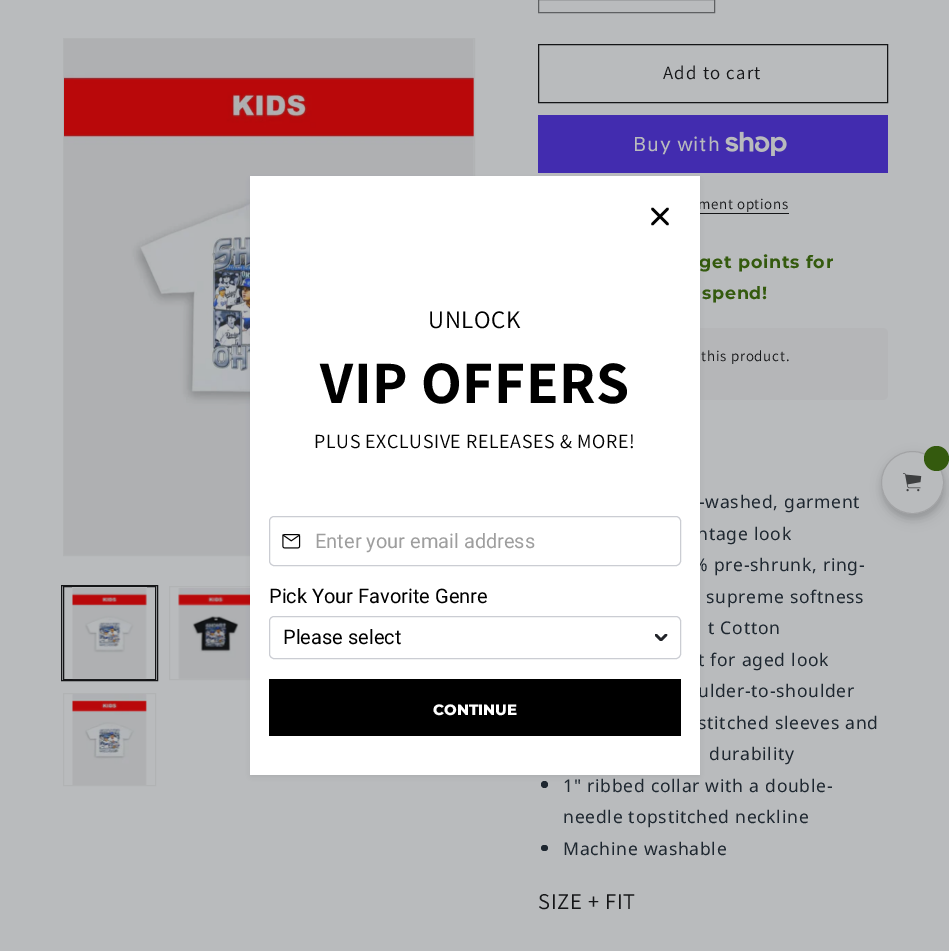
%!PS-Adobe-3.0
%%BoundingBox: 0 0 949 951
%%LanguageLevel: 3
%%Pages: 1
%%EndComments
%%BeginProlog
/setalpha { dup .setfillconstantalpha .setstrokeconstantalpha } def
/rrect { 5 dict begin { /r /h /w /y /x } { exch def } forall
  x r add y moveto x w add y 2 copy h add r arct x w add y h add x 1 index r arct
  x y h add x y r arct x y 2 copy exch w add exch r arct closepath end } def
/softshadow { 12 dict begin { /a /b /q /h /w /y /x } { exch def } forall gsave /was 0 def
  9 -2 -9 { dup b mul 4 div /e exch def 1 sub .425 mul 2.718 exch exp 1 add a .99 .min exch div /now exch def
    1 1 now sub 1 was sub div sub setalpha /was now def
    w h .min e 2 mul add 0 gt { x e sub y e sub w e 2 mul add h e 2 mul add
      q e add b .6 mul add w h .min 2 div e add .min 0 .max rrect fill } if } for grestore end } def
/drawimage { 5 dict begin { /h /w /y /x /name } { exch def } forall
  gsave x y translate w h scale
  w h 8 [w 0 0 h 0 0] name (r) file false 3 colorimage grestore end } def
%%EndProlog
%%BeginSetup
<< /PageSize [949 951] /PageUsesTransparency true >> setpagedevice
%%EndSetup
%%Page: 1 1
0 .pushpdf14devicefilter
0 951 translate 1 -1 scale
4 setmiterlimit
0.725 0.733 0.741 setrgbcolor
0 0 949 951 rectfill
0.694 0.702 0.706 setrgbcolor
63.5 38.5 411 517 rectstroke
(images/2.raw) 64 39 410 516 drawimage
169.5 586.5 93 93 rectstroke
(images/4.raw) 178 587 72 92 drawimage
0.259 0.173 0.686 setrgbcolor
538 115 350 58 rectfill
0.078 0.082 0.09 setrgbcolor
700 213 89 1 rectfill
0.71 0.714 0.722 setrgbcolor
538 328 350 72 5 rrect fill
0.118 0.153 0.188 setrgbcolor
newpath 544.5 784.5 3.5 0 360 arc closepath fill
0.118 0.149 0.2 setrgbcolor
251 180 448 596 0 2.5 0.1 softshadow
0.078 0.082 0.09 setrgbcolor
61.5 585.5 96 95 rectstroke
63.5 586.5 92 93 rectstroke
(images/3.raw) 72 587 75 93 drawimage
0.694 0.702 0.706 setrgbcolor
63.5 693.5 92 92 rectstroke
(images/5.raw) 72 694 75 91 drawimage
0.369 0.376 0.384 setrgbcolor
538.5 -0.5 176 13 rectstroke
0.078 0.082 0.09 setrgbcolor
538.5 44.5 349 58 rectstroke
(images/6.raw) 725 131 62 25 drawimage
0.118 0.153 0.188 setrgbcolor
541 845 7 6 3 rrect fill
0.027 0.031 0.039 setrgbcolor
881 456 63 63 31.5 2.5 0.08 softshadow
883 456 62 63 31 6 0.12 softshadow
0.725 0.733 0.741 setrgbcolor
newpath 912.5 482.5 31 0 360 arc closepath gsave fill grestore
0.635 0.639 0.647 setrgbcolor
stroke
0.204 0.353 0.055 setrgbcolor
newpath 936.5 458.5 12.5 0 360 arc closepath fill
(images/7.raw) 903 473 19 19 drawimage
/Assistant-Regular [18.75 0 0 -18.75 0 0] selectfont
0.078 0.082 0.09 setrgbcolor
663 79 moveto 1.25 0 (Add to cart) ashow
/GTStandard-Regular [20 0 0 -20 0 0] selectfont
0.725 0.733 0.741 setrgbcolor
633 151 moveto 0.75 0 (Buy with) ashow
/Assistant-Regular [15 0 0 -15 0 0] selectfont
0.078 0.082 0.09 setrgbcolor
698 209 moveto 0.6 0 (ment options) ashow
/Montserrat-Bold [17.5 0 0 -17.5 0 0] selectfont
0.204 0.353 0.055 setrgbcolor
699 268 moveto 0.75 0 (get points for) ashow
702 299 moveto 0.75 0 (spend!) ashow
/Assistant-Regular [15 0 0 -15 0 0] selectfont
0.078 0.082 0.09 setrgbcolor
701 361 moveto 0.75 0 (this product.) ashow
/NotoSans-Regular [17.5 0 0 -17.5 0 0] selectfont
0.118 0.153 0.188 setrgbcolor
699 508 moveto 0.75 0 (-washed, garment) ashow
697 540 moveto 0.75 0 (ntage look) ashow
693 571 moveto 0.75 0 (% pre-shrunk, ring-) ashow
706 603 moveto 0.75 0 (supreme softness) ashow
708 634 moveto 0.75 0 (t Cotton) ashow
698 666 moveto 0.75 0 (t for aged look) ashow
698 697 moveto 0.75 0 (ulder-to-shoulder) ashow
698 729 moveto 0.75 0 (stitched sleeves and) ashow
1 setgray
250 176 450 599 rectfill
0 setgray
2.5 setlinewidth
1 setlinecap
1 setlinejoin
newpath 667.5 209 moveto 652.5 224 lineto 652.5 209 moveto 667.5 224 lineto stroke
0.796 0.804 0.827 setrgbcolor
1 setlinewidth
0 setlinecap
0 setlinejoin
269.5 516.5 411 49 4.5 rrect stroke
(images/1.raw) 282 534 19 15 drawimage
0 setgray
269 679 412 57 rectfill
/Montserrat-ExtraBold [15 0 0 -15 0 0] selectfont
1 setgray
433 715 moveto (CONTINUE) show
/Roboto-Regular [20 0 0 -20 0 0] selectfont
0.62 setgray
315 548 moveto (Enter your email address) show
0.796 0.804 0.827 setrgbcolor
269.5 616.5 411 42 4.5 rrect stroke
gsave
655 634 13 7 rectclip
0.133 0.141 0.161 setrgbcolor
2.5 setlinewidth
1 setlinecap
1 setlinejoin
newpath 656 635 moveto 661 640 lineto 666 635 lineto stroke
grestore
0 setgray
283 644 moveto (Please select) show
269 603 moveto (Pick Your Favorite Genre) show
/Assistant-Regular [20 0 0 -20 0 0] selectfont
314 448 moveto 0.6 0 (PLUS EXCLUSIVE RELEASES & MORE!) ashow
/Assistant-Bold [60 0 0 -60 0 0] selectfont
320 403 moveto 0.6 0 (VIP OFFERS) ashow
/Assistant-Regular [25 0 0 -25 0 0] selectfont
428 328 moveto 0.6 0 (UNLOCK) ashow
/NotoSans-Regular [17.5 0 0 -17.5 0 0] selectfont
0.118 0.153 0.188 setrgbcolor
709 760 moveto 0.75 0 (durability) ashow
563 792 moveto 0.75 0 (1" ribbed collar with a double-) ashow
563 823 moveto 0.75 0 (needle topstitched neckline) ashow
563 855 moveto 0.75 0 (Machine washable) ashow
/Assistant-Regular [22.5 0 0 -22.5 0 0] selectfont
0.078 0.082 0.09 setrgbcolor
538 909 moveto 0.75 0 (SIZE + FIT) ashow
.poppdf14devicefilter showpage
%%EOF
